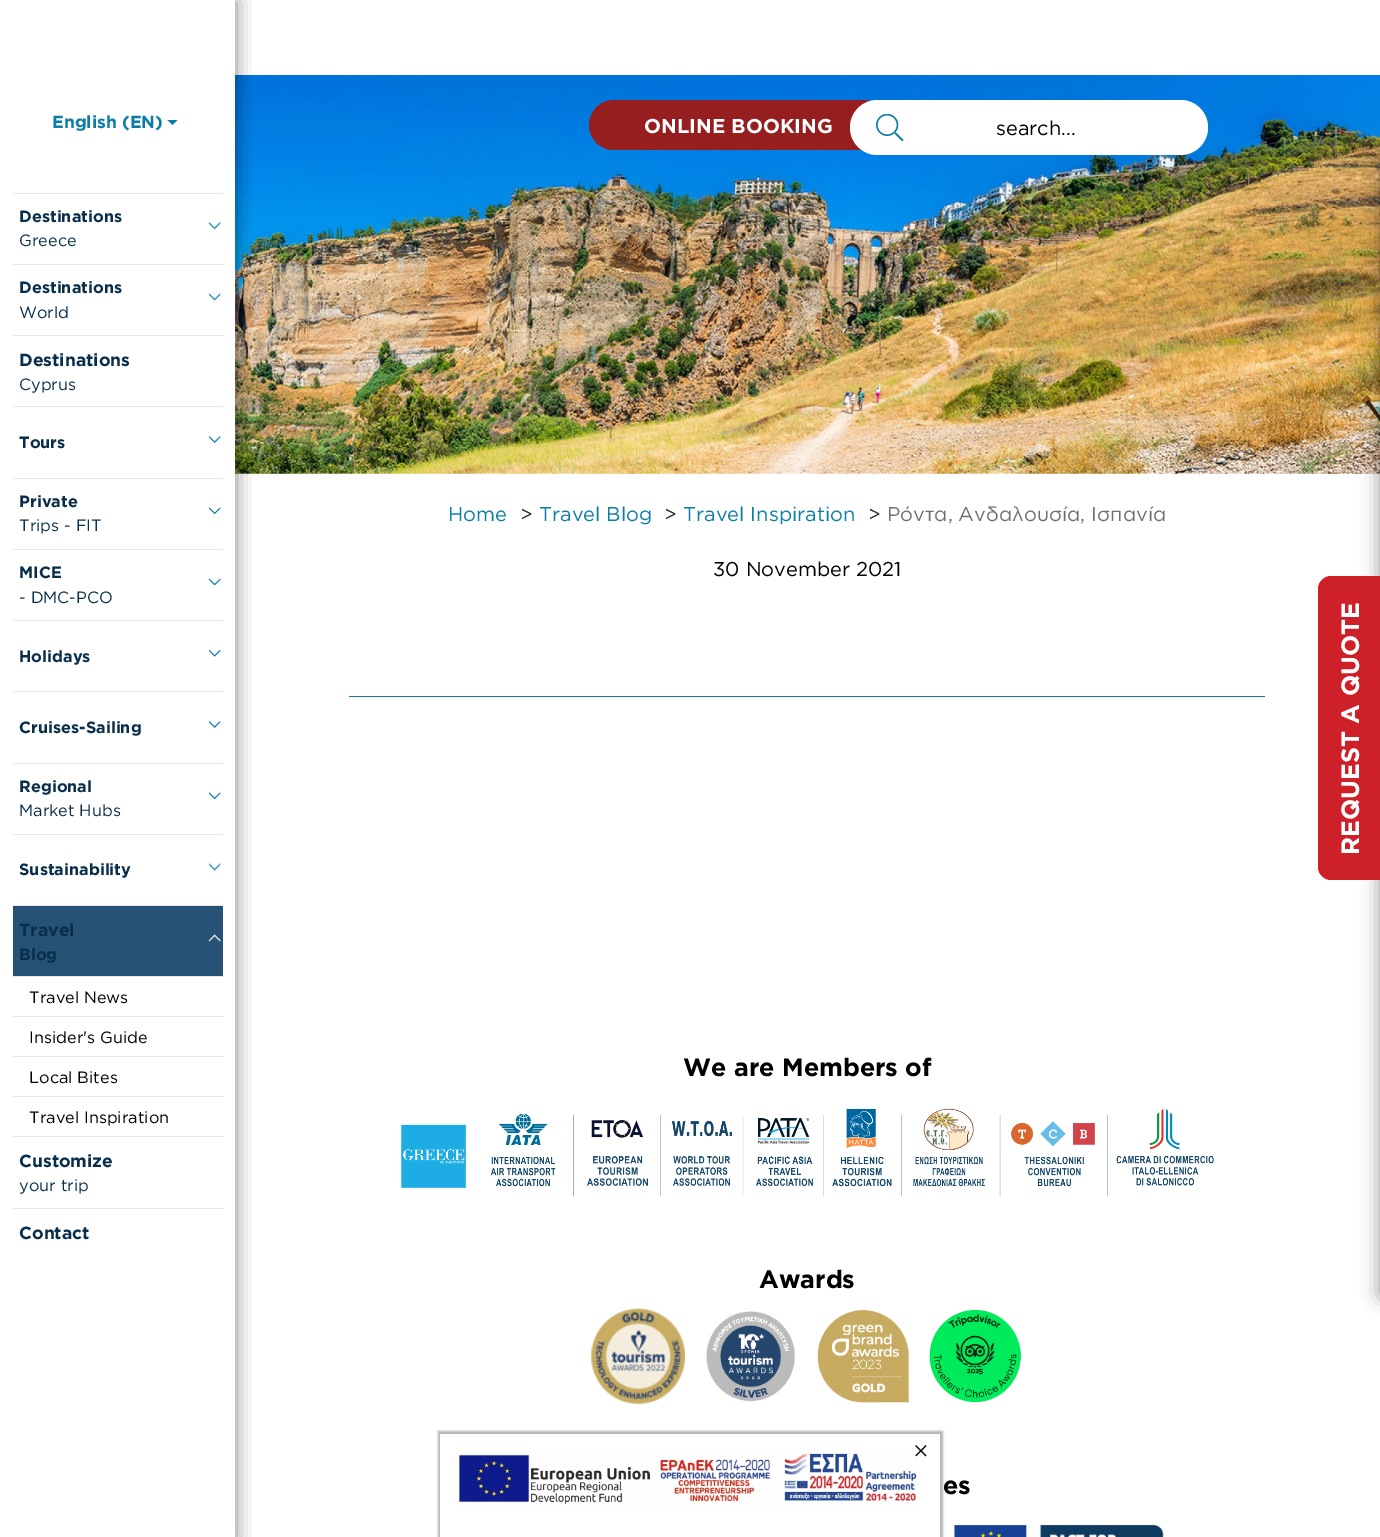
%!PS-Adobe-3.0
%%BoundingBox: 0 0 1380 1537
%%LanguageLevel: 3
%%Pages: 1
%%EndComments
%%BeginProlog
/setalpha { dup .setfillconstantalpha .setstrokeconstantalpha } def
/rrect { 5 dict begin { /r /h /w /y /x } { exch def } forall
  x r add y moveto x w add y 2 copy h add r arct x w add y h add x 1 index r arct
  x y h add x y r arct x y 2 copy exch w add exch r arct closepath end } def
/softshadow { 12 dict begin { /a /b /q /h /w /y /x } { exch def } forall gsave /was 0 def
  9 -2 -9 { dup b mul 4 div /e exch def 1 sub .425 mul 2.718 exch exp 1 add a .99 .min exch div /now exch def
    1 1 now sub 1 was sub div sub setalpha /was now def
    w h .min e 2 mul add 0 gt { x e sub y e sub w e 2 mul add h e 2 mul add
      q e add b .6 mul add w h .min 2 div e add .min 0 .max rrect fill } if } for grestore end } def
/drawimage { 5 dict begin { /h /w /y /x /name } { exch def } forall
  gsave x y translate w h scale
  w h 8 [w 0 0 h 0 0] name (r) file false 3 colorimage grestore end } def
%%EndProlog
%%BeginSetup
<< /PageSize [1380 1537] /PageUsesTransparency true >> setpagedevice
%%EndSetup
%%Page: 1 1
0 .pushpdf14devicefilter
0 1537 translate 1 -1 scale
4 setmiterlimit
1 setgray
0 0 1380 1537 rectfill
(images/9.raw) 235 75 1145 399 drawimage
gsave
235 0 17 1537 rectclip
0 setgray
1 1 235 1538 0 9.5 0.45 softshadow
grestore
0.047 0.49 0.655 setrgbcolor
newpath 167.5 120 moveto 177.5 120 lineto 172.5 125 lineto closepath fill
0.902 setgray
13 193 210 1 rectfill
(images/1.raw) 208 222 13 8 drawimage
13 264 210 1 rectfill
(images/2.raw) 208 293 13 8 drawimage
13 335 210 1 rectfill
13 406 210 1 rectfill
(images/3.raw) 208 436 13 7 drawimage
13 478 210 1 rectfill
(images/4.raw) 208 507 13 8 drawimage
13 549 210 1 rectfill
(images/5.raw) 208 578 13 8 drawimage
13 620 210 1 rectfill
(images/6.raw) 208 650 13 7 drawimage
13 691 210 1 rectfill
(images/3.raw) 208 721 13 7 drawimage
13 763 210 1 rectfill
(images/4.raw) 208 792 13 8 drawimage
13 834 210 1 rectfill
(images/7.raw) 208 863 13 8 drawimage
0.145 0.322 0.459 setrgbcolor
13 906 210 70 rectfill
0.902 setgray
13 905 210 1 rectfill
(images/8.raw) 208 934 13 8 drawimage
13 976 210 1 rectfill
13 1016 210 1 rectfill
13 1056 210 1 rectfill
13 1096 210 1 rectfill
13 1136 210 1 rectfill
13 1208 210 1 rectfill
0.592 0.118 0.118 setrgbcolor
589 100 299 50 25 rrect fill
1 setgray
850 100 358 55 27.5 rrect fill
(images/10.raw) 876 114 28 27 drawimage
0.047 0.49 0.655 setrgbcolor
349 696 916 1 rectfill
(images/11.raw) 401 1108 813 89 drawimage
(images/12.raw) 591 1308 94 96 drawimage
(images/13.raw) 706 1311 90 91 drawimage
(images/14.raw) 817 1309 93 94 drawimage
(images/15.raw) 929 1310 93 93 drawimage
(images/16.raw) 954 1524 210 13 drawimage
0 setgray
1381 163 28 1133 0 9.5 0.45 softshadow
0.808 0.125 0.161 setrgbcolor
newpath 1331 576 moveto 1380 576 lineto 1380 880 lineto 1331 880 lineto 1324 880 1318 874 1318 867 curveto 1318 589 lineto 1318 582 1324 576 1331 576 curveto closepath fill
0 0 0.004 setrgbcolor
438 1431 505 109 0 1 0.3 softshadow
1 setgray
440 1434 500 103 rectfill
(images/17.raw) 459 1451 458 58 drawimage
/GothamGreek-Bold [17.5 0 0 -17.5 0 0] selectfont
0.047 0.49 0.655 setrgbcolor
52 128 moveto (English \(EN\)) show
/GothamGreek-Bold [16.25 0 0 -16.25 0 0] selectfont
0.035 0.18 0.294 setrgbcolor
19 222 moveto (Destinations) show
/GothamGreek-Regular [16.25 0 0 -16.25 0 0] selectfont
19 246 moveto (Greece) show
/GothamGreek-Bold [16.25 0 0 -16.25 0 0] selectfont
19 293 moveto (Destinations) show
/GothamGreek-Regular [16.25 0 0 -16.25 0 0] selectfont
19 318 moveto (World) show
/GothamGreek-Bold [17.5 0 0 -17.5 0 0] selectfont
19 366 moveto (Destinations) show
/GothamGreek-Regular [16.25 0 0 -16.25 0 0] selectfont
19 390 moveto (Cyprus) show
/GothamGreek-Bold [16.25 0 0 -16.25 0 0] selectfont
19 448 moveto (Tours) show
19 507 moveto (Private) show
/GothamGreek-Regular [16.25 0 0 -16.25 0 0] selectfont
19 531 moveto (Trips - FIT) show
/GothamGreek-Bold [16.25 0 0 -16.25 0 0] selectfont
19 578 moveto (MICE) show
/GothamGreek-Regular [16.25 0 0 -16.25 0 0] selectfont
19 603 moveto (- DMC-PCO) show
/GothamGreek-Bold [16.25 0 0 -16.25 0 0] selectfont
19 662 moveto (Holidays) show
19 733 moveto (Cruises-Sailing) show
19 792 moveto (Regional) show
/GothamGreek-Regular [16.25 0 0 -16.25 0 0] selectfont
19 816 moveto (Market Hubs) show
/GothamGreek-Bold [16.25 0 0 -16.25 0 0] selectfont
19 875 moveto (Sustainability) show
/GothamGreek-Bold [17.5 0 0 -17.5 0 0] selectfont
19 936 moveto (Travel) show
/GothamGreek-Bold [16.25 0 0 -16.25 0 0] selectfont
19 960 moveto (Blog) show
/GothamGreek-Regular [16.25 0 0 -16.25 0 0] selectfont
0 setgray
29 1003 moveto (Travel News) show
29 1043 moveto (Insider's Guide) show
29 1083 moveto (Local Bites) show
29 1123 moveto (Travel Inspiration) show
/GothamGreek-Bold [17.5 0 0 -17.5 0 0] selectfont
0.035 0.18 0.294 setrgbcolor
19 1167 moveto (Customize) show
/GothamGreek-Regular [16.25 0 0 -16.25 0 0] selectfont
19 1191 moveto (your trip) show
/GothamGreek-Bold [17.5 0 0 -17.5 0 0] selectfont
19 1239 moveto (Contact) show
/GothamGreek-Bold [20 0 0 -20 0 0] selectfont
1 setgray
644 133 moveto (ONLINE BOOKING) show
/GothamGreek-Regular [20 0 0 -20 0 0] selectfont
0 setgray
996 135 moveto (search...) show
0.047 0.49 0.655 setrgbcolor
448 521 moveto (Home) show
0.129 0.145 0.161 setrgbcolor
520 521 moveto (>) show
0.047 0.49 0.655 setrgbcolor
539 521 moveto (Travel Blog) show
0.129 0.145 0.161 setrgbcolor
664 521 moveto (>) show
0.047 0.49 0.655 setrgbcolor
683 521 moveto (Travel Inspiration) show
0.129 0.145 0.161 setrgbcolor
868 521 moveto (>) show
0.439 setgray
887 521 moveto (Ρόντα, Ανδαλουσία, Ισπανία) show
0 setgray
713 576 moveto (30 November 2021) show
/GothamGreek-Bold [25 0 0 -25 0 0] selectfont
683 1076 moveto (We are Members of) show
759 1288 moveto (Awards) show
943 1494 moveto (es) show
1 setgray
gsave 1359 855 translate -90 rotate 0 0 moveto (REQUEST A QUOTE) show grestore
/LiberationSerif-Regular [28 0 0 -28 0 0] selectfont
0 setgray
913 1460 moveto (×) show
.poppdf14devicefilter showpage
%%EOF
